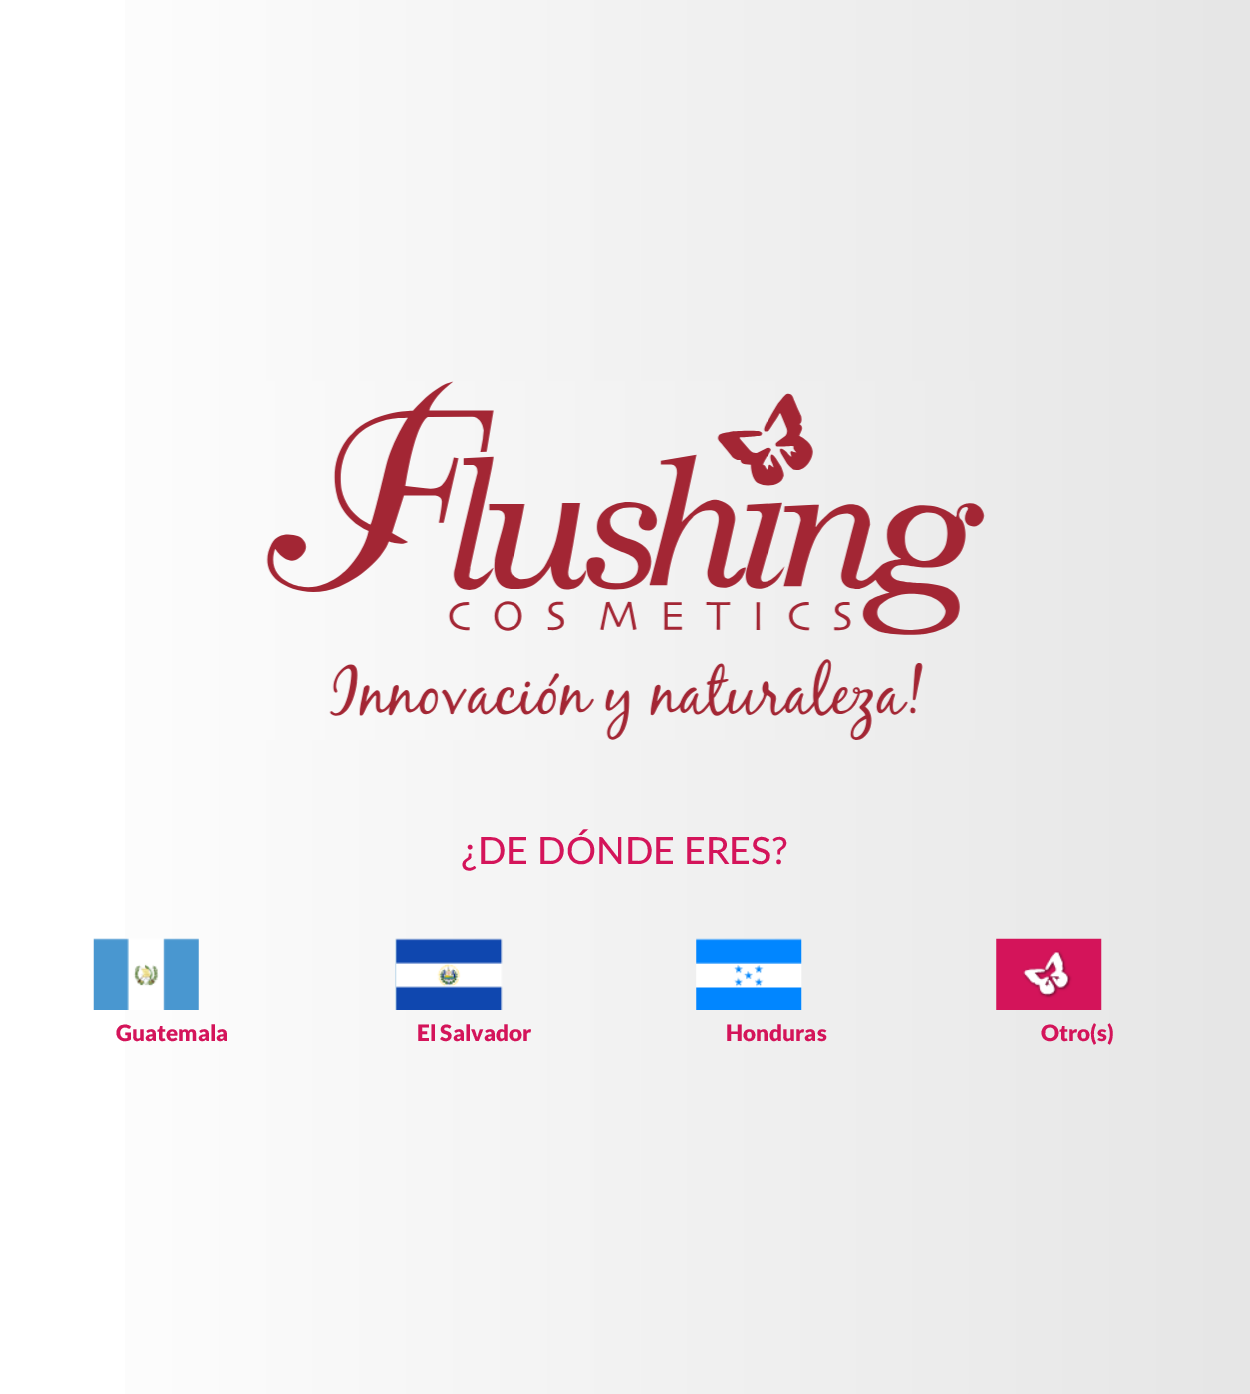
%!PS-Adobe-3.0
%%BoundingBox: 0 0 1250 1394
%%LanguageLevel: 3
%%Pages: 1
%%EndComments
%%BeginProlog
/drawimage { 5 dict begin { /h /w /y /x /name } { exch def } forall
  gsave x y translate w h scale
  w h 8 [w 0 0 h 0 0] name (r) file false 3 colorimage grestore end } def
%%EndProlog
%%BeginSetup
<< /PageSize [1250 1394] >> setpagedevice
%%EndSetup
%%Page: 1 1
0 1394 translate 1 -1 scale
4 setmiterlimit
1 setgray
0 0 1250 1394 rectfill
gsave newpath 125 0 moveto 1250 0 lineto 1250 1394 lineto 125 1394 lineto closepath clip newpath
<< /ShadingType 2 /ColorSpace /DeviceRGB /Coords [0 698 1250 698] /Extend [true true] /Function << /FunctionType 2 /Domain [0 1] /C0 [1 1 1] /C1 [0.902 0.902 0.902] /N 1 >> >> shfill grestore
(images/1.raw) 266 381 719 359 drawimage
(images/2.raw) 93 938 106 72 drawimage
(images/3.raw) 395 938 108 72 drawimage
(images/4.raw) 696 938 106 72 drawimage
(images/5.raw) 996 938 106 72 drawimage
/Lato-Medium [37.5 0 0 -37.5 0 0] selectfont
0.831 0.078 0.353 setrgbcolor
461 864 moveto (¿DE DÓNDE ERES?) show
/Lato-Black [22.5 0 0 -22.5 0 0] selectfont
116 1041 moveto (Guatemala) show
417 1041 moveto (El Salvador) show
726 1041 moveto (Honduras) show
1041 1041 moveto (Otro\(s\)) show
showpage
%%EOF
